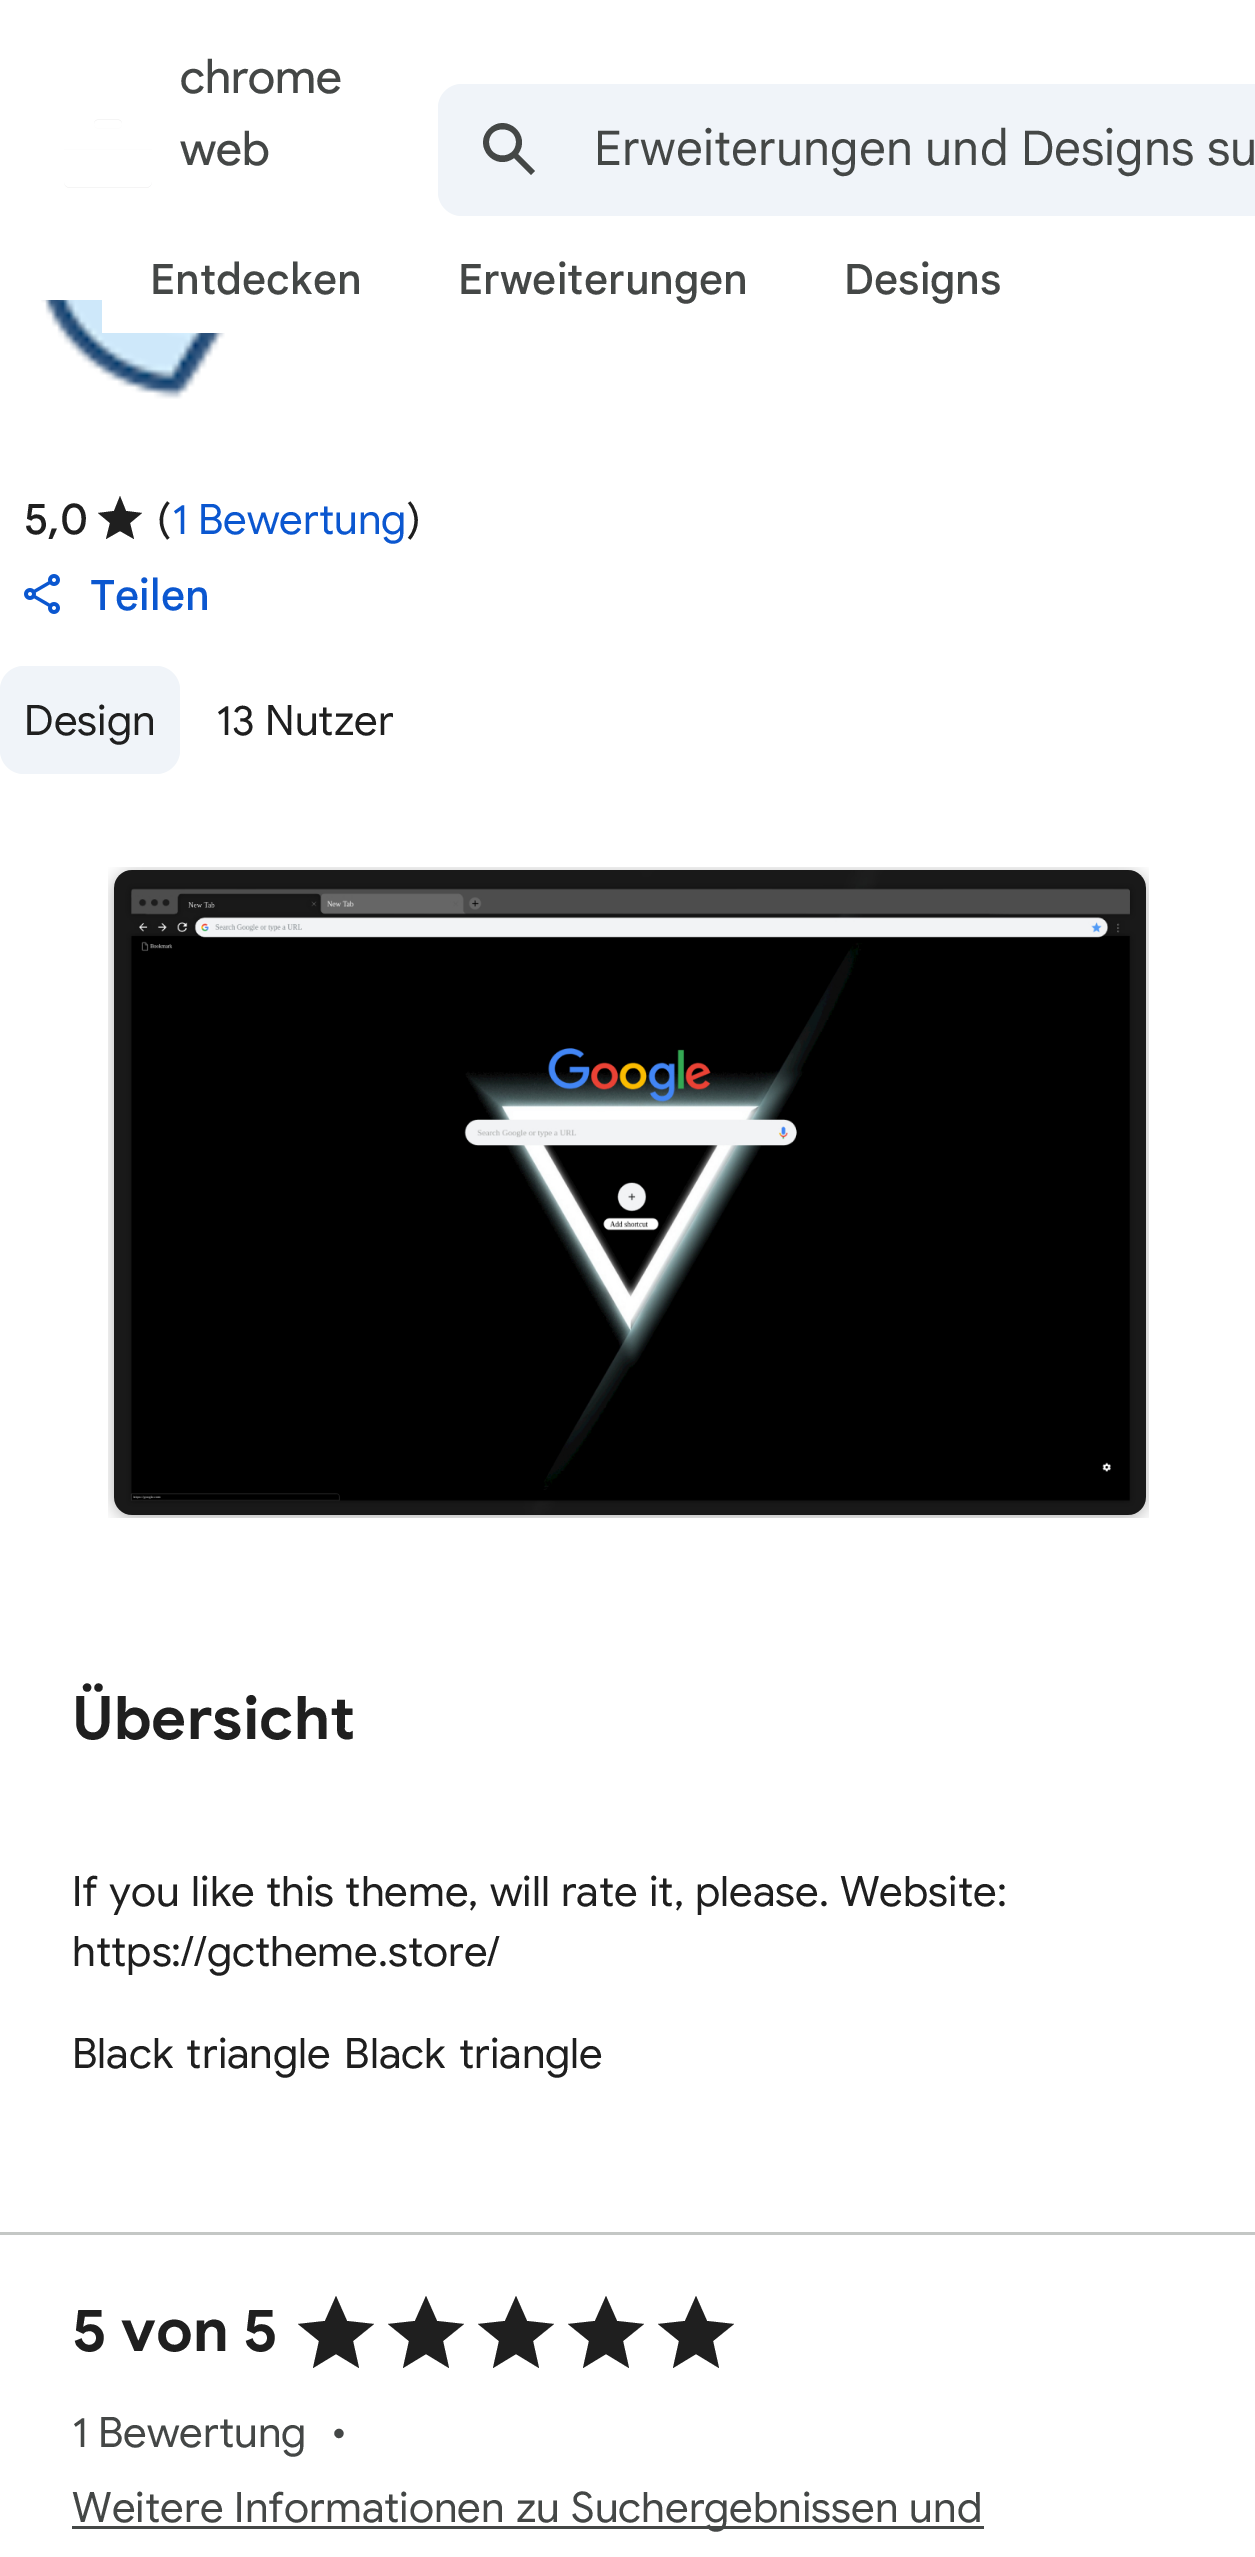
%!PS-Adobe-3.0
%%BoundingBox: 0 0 1255 2557
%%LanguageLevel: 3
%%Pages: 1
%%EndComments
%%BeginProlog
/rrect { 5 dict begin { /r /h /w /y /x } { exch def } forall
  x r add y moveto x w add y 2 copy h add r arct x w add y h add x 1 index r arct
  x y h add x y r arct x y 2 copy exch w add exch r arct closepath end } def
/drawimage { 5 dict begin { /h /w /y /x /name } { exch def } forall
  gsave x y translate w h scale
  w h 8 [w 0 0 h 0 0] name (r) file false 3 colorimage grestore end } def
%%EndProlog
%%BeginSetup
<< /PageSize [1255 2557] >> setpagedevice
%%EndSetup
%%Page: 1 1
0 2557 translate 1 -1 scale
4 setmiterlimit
1 setgray
0 0 1255 2557 rectfill
(images/1.raw) 64 119 88 69 drawimage
0.941 0.957 0.976 setrgbcolor
438 84 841 132 24 rrect fill
0.267 0.278 0.275 setrgbcolor
newpath 535 171 moveto 518 154 lineto 532 135 506 112 489 129 curveto 472 146 495 172 514 158 curveto 531 175 lineto closepath 489 142 moveto 489 125 516 125 516 142 curveto 516 160 489 160 489 142 curveto closepath fill
(images/2.raw) 41 300 184 99 drawimage
1 setgray
102 300 123 33 rectfill
0.122 setgray
newpath 120 531 moveto 134 539 lineto 130 523 lineto 142 513 lineto 126 511 lineto 120 496 lineto 114 511 lineto 98 513 lineto 110 523 lineto 106 539 lineto closepath fill
(images/3.raw) 24 574 36 40 drawimage
0.941 0.957 0.976 setrgbcolor
0 666 180 108 24 rrect fill
(images/4.raw) 108 867 1041 651 drawimage
0.769 0.78 0.773 setrgbcolor
0 2232 1255 3 rectfill
0.122 setgray
newpath 336 2354 moveto 359 2368 lineto 353 2341 lineto 374 2324 lineto 347 2321 lineto 336 2296 lineto 325 2321 lineto 298 2324 lineto 319 2341 lineto 313 2368 lineto closepath fill
newpath 426 2354 moveto 449 2368 lineto 443 2341 lineto 464 2324 lineto 437 2321 lineto 426 2296 lineto 415 2321 lineto 388 2324 lineto 409 2341 lineto 403 2368 lineto closepath fill
newpath 516 2354 moveto 539 2368 lineto 533 2341 lineto 554 2324 lineto 527 2321 lineto 516 2296 lineto 505 2321 lineto 478 2324 lineto 499 2341 lineto 493 2368 lineto closepath fill
newpath 606 2354 moveto 629 2368 lineto 623 2341 lineto 644 2324 lineto 617 2321 lineto 606 2296 lineto 595 2321 lineto 568 2324 lineto 589 2341 lineto 583 2368 lineto closepath fill
newpath 696 2354 moveto 719 2368 lineto 713 2341 lineto 734 2324 lineto 707 2321 lineto 696 2296 lineto 685 2321 lineto 658 2324 lineto 679 2341 lineto 673 2368 lineto closepath fill
0.267 0.278 0.275 setrgbcolor
72 2526 912 3 rectfill
/ProductSans-Regular [48 0 0 -48 0 0] selectfont
180 93 moveto (chrome) show
180 165 moveto (web) show
/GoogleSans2-Regular [48 0 0 -48 0 0] selectfont
594 165 moveto (Erweiterungen und Designs su) show
/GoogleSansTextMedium-Medium [42 0 0 -42 0 0] selectfont
150 294 moveto (Entdecken) show
458 294 moveto (Erweiterungen) show
844 294 moveto (Designs) show
/GoogleSans-Medium [42 0 0 -42 0 0] selectfont
0.122 setgray
24 534 moveto (5,0) show
/GoogleSans-Regular [42 0 0 -42 0 0] selectfont
157 534 moveto (\() show
0.043 0.341 0.816 setrgbcolor
172 534 moveto (1 Bewertung) show
0.122 setgray
407 534 moveto (\)) show
/GoogleSansTextMedium-Medium [42 0 0 -42 0 0] selectfont
0.043 0.341 0.816 setrgbcolor
90 610 moveto (Teilen) show
/GoogleSans-Regular [42 0 0 -42 0 0] selectfont
0.122 setgray
24 735 moveto (Design) show
216 735 moveto 1 0 32 (13 Nutzer) widthshow
/GoogleSans-Bold [60 0 0 -60 0 0] selectfont
72 1739 moveto (Übersicht) show
/GoogleSans-Regular [42 0 0 -42 0 0] selectfont
72 1906 moveto 1.5 0 32 (If you like this theme, will rate it, please. Website:) widthshow
72 1966 moveto (https://gctheme.store/) show
72 2068 moveto 4 0 32 (Black triangle Black triangle) widthshow
/GoogleSans-Bold [60 0 0 -60 0 0] selectfont
72 2351 moveto (5 von 5) show
/GoogleSans-Regular [42 0 0 -42 0 0] selectfont
0.267 0.278 0.275 setrgbcolor
72 2447 moveto (1 Bewertung) show
331 2447 moveto (•) show
72 2522 moveto 1.5 0 32 (Weitere Informationen zu Suchergebnissen und) widthshow
showpage
%%EOF
